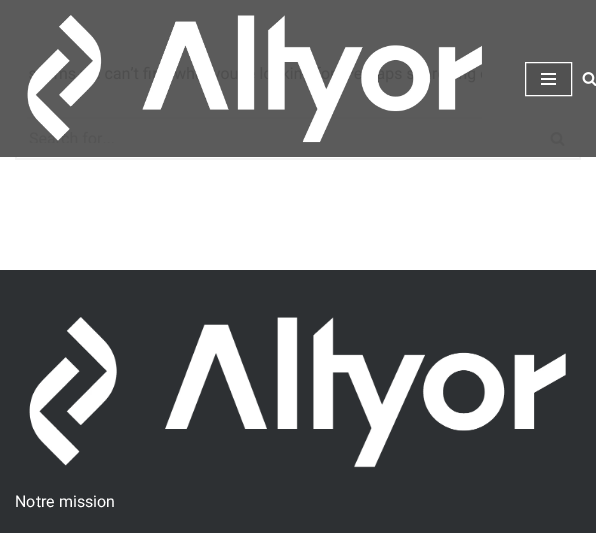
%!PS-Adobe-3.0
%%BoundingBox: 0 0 596 533
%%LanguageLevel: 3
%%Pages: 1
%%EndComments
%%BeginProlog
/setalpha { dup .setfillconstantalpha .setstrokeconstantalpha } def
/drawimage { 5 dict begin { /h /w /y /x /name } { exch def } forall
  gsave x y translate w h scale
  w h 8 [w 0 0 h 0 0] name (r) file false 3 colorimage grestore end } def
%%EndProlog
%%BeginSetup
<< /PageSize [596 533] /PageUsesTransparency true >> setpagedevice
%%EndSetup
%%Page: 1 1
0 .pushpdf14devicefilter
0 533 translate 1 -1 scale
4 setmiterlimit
1 setgray
0 0 596 533 rectfill
0.357 setgray
0 0 596 157 rectfill
(images/1.raw) 27 15 455 128 drawimage
0.94 setalpha
0.314 setgray
newpath 525.5 62.5 moveto 571.5 62.5 lineto 571.5 95.5 lineto 525.5 95.5 lineto closepath fill
1 setalpha
1 setgray
newpath 525.5 62.5 moveto 571.5 62.5 lineto 571.5 95.5 lineto 525.5 95.5 lineto closepath stroke
541 73 15 2 rectfill
541 78 15 2 rectfill
541 83 15 2 rectfill
(images/2.raw) 582 72 14 14 drawimage
0.953 setgray
15 158 521 2 rectfill
15 157 2 3 rectfill
579 157 2 3 rectfill
536 158 45 2 rectfill
(images/3.raw) 550 132 15 14 drawimage
0.176 0.188 0.2 setrgbcolor
0 270 596 263 rectfill
(images/4.raw) 29 317 537 151 drawimage
/Roboto-Regular [16 0 0 -16 0 0] selectfont
1 setgray
15 507 moveto (Notre mission) show
.poppdf14devicefilter showpage
%%EOF
